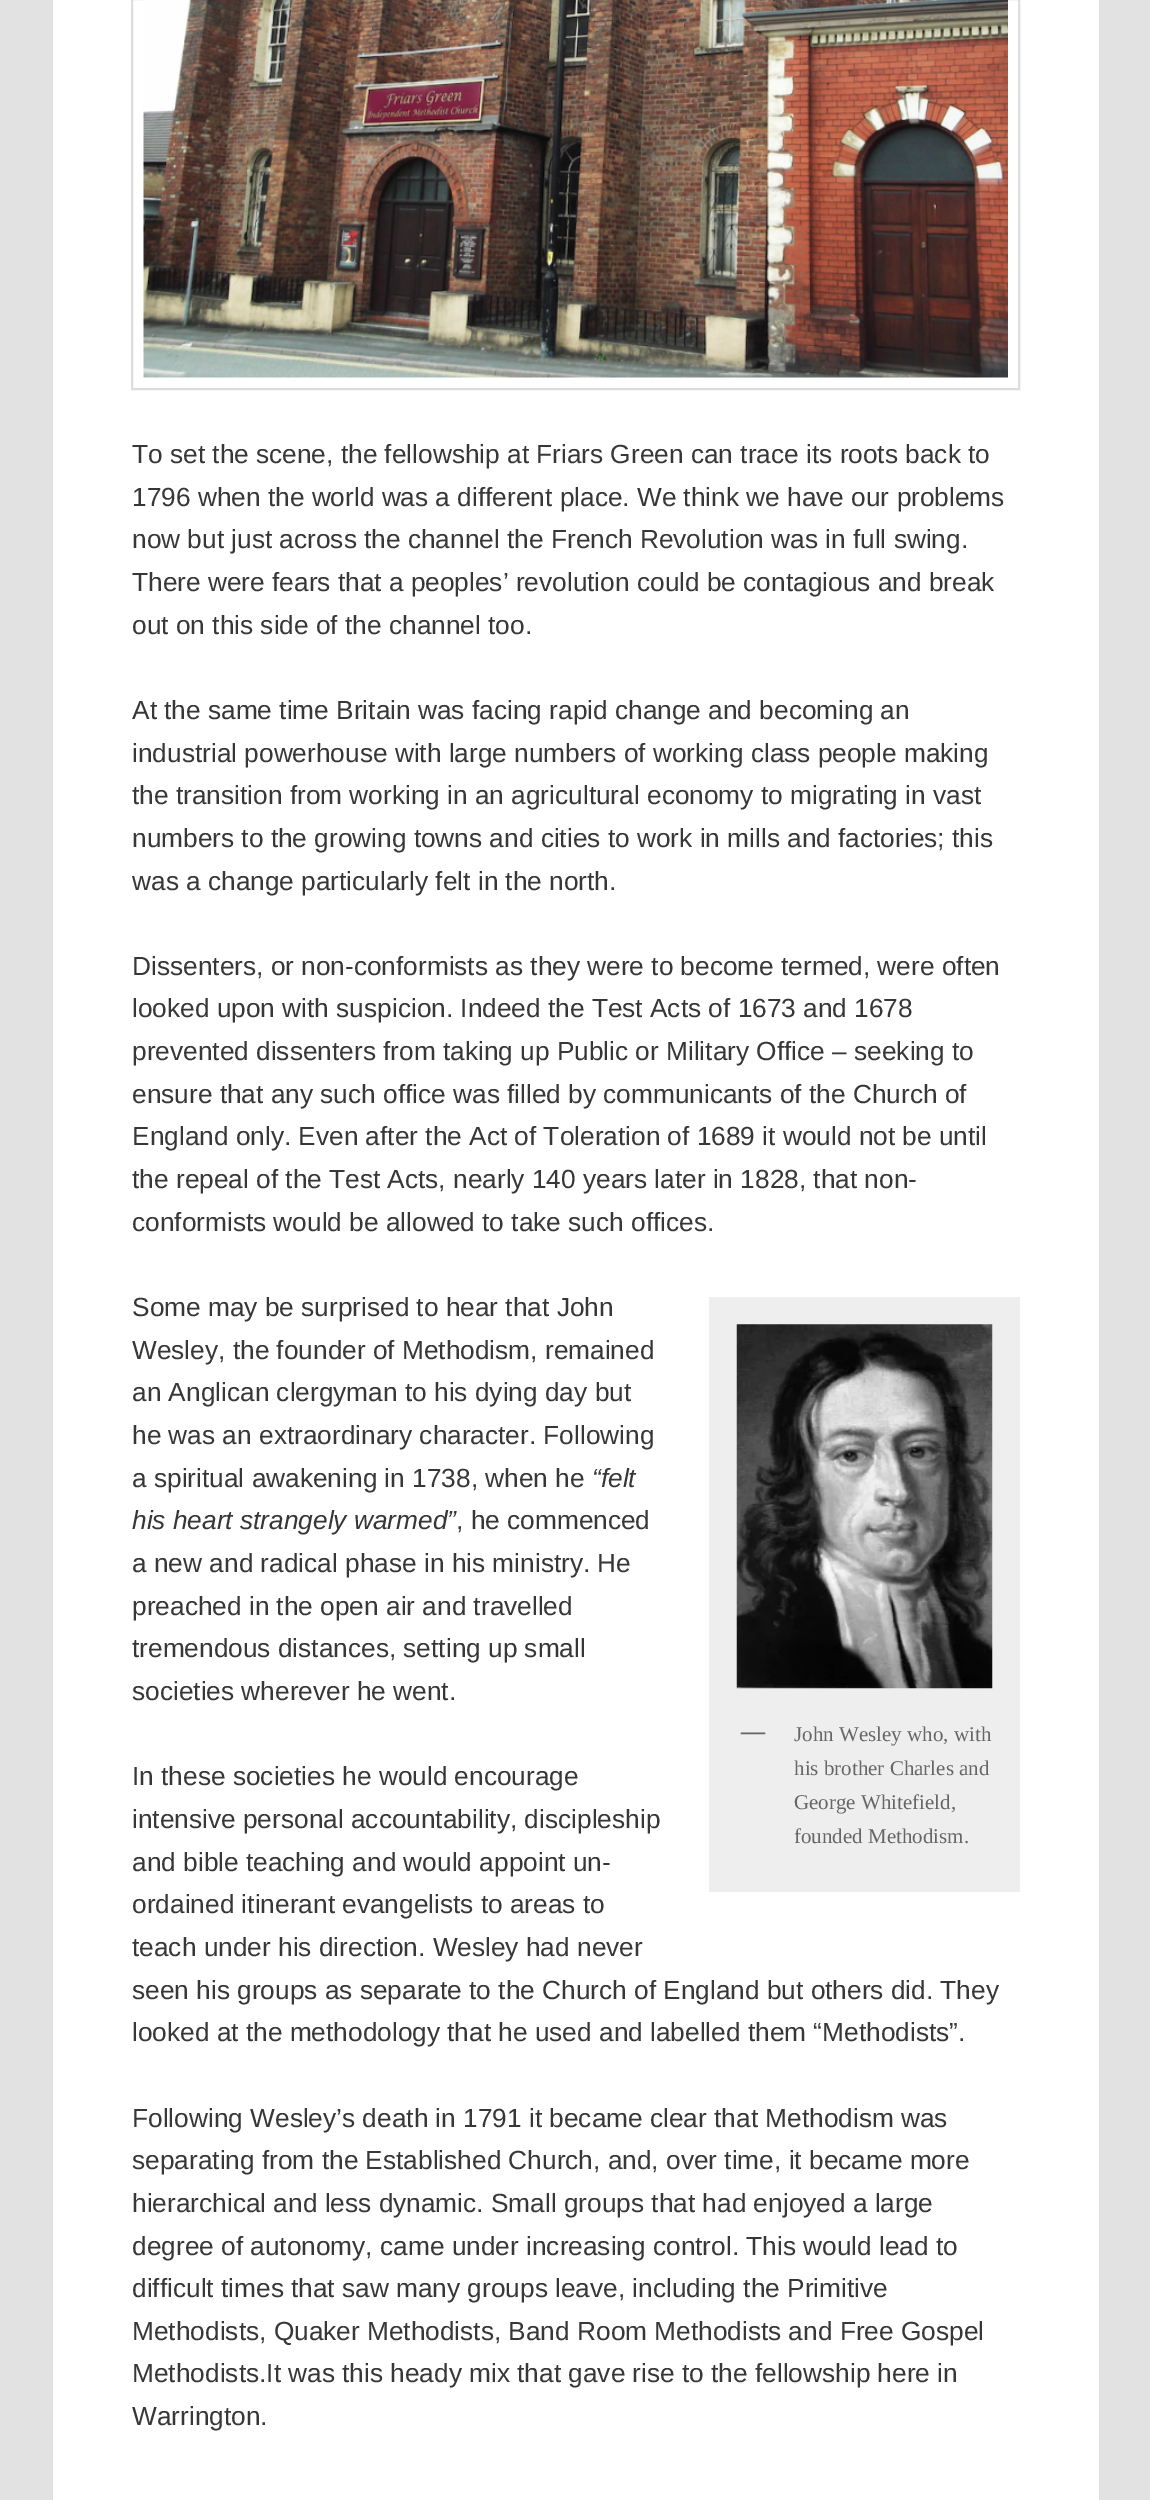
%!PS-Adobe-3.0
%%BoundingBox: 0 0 1150 2500
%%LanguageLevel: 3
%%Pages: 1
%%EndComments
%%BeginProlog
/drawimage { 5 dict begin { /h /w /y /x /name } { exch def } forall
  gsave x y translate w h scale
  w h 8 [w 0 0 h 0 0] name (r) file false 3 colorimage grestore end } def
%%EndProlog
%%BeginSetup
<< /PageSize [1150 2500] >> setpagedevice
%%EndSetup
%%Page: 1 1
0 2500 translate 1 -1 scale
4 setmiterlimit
0.886 setgray
0 0 1150 2500 rectfill
1 setgray
53 0 1046 2500 rectfill
0.867 setgray
2 setlinewidth
132 -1 887 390 rectstroke
(images/1.raw) 143 0 865 378 drawimage
0.933 setgray
709 1297 311 595 rectfill
(images/2.raw) 736 1324 257 365 drawimage
/LiberationSans-Regular [26.25 0 0 -26.25 0 0] selectfont
0.216 setgray
132 463 moveto (To set the scene, the fellowship at Friars Green can trace its roots back to) show
132 506 moveto (1796 when the world was a different place. We think we have our problems) show
132 548 moveto (now but just across the channel the French Revolution was in full swing.) show
132 591 moveto (There were fears that a peoples’ revolution could be contagious and break) show
132 634 moveto (out on this side of the channel too.) show
132 719 moveto (At the same time Britain was facing rapid change and becoming an) show
132 762 moveto (industrial powerhouse with large numbers of working class people making) show
132 804 moveto (the transition from working in an agricultural economy to migrating in vast) show
132 847 moveto (numbers to the growing towns and cities to work in mills and factories; this) show
132 890 moveto (was a change particularly felt in the north.) show
132 975 moveto (Dissenters, or non-conformists as they were to become termed, were often) show
132 1017 moveto (looked upon with suspicion. Indeed the Test Acts of 1673 and 1678) show
132 1060 moveto (prevented dissenters from taking up Public or Military Office – seeking to) show
132 1103 moveto (ensure that any such office was filled by communicants of the Church of) show
132 1145 moveto (England only. Even after the Act of Toleration of 1689 it would not be until) show
132 1188 moveto (the repeal of the Test Acts, nearly 140 years later in 1828, that non-) show
132 1231 moveto (conformists would be allowed to take such offices.) show
132 1316 moveto (Some may be surprised to hear that John) show
132 1359 moveto (Wesley, the founder of Methodism, remained) show
132 1401 moveto (an Anglican clergyman to his dying day but) show
132 1444 moveto (he was an extraordinary character. Following) show
132 1487 moveto (a spiritual awakening in 1738, when he) show
/LiberationSans-Italic [26.25 0 0 -26.25 0 0] selectfont
592 1487 moveto (“felt) show
132 1529 moveto (his heart strangely warmed”) show
/LiberationSans-Regular [26.25 0 0 -26.25 0 0] selectfont
456 1529 moveto (, he commenced) show
132 1572 moveto (a new and radical phase in his ministry. He) show
132 1615 moveto (preached in the open air and travelled) show
132 1657 moveto (tremendous distances, setting up small) show
132 1700 moveto (societies wherever he went.) show
/LiberationSerif-Bold [24 0 0 -24 0 0] selectfont
0.4 setgray
741 1739 moveto (—) show
/LiberationSerif-Regular [21 0 0 -21 0 0] selectfont
794 1741 moveto (John Wesley who, with) show
794 1775 moveto (his brother Charles and) show
794 1809 moveto (George Whitefield,) show
794 1843 moveto (founded Methodism.) show
/LiberationSans-Regular [26.25 0 0 -26.25 0 0] selectfont
0.216 setgray
132 1785 moveto (In these societies he would encourage) show
132 1828 moveto (intensive personal accountability, discipleship) show
132 1871 moveto (and bible teaching and would appoint un-) show
132 1913 moveto (ordained itinerant evangelists to areas to) show
132 1956 moveto (teach under his direction. Wesley had never) show
132 1999 moveto (seen his groups as separate to the Church of England but others did. They) show
132 2041 moveto (looked at the methodology that he used and labelled them “Methodists”.) show
132 2127 moveto (Following Wesley’s death in 1791 it became clear that Methodism was) show
132 2169 moveto (separating from the Established Church, and, over time, it became more) show
132 2212 moveto (hierarchical and less dynamic. Small groups that had enjoyed a large) show
132 2255 moveto (degree of autonomy, came under increasing control. This would lead to) show
132 2297 moveto (difficult times that saw many groups leave, including the Primitive) show
132 2340 moveto (Methodists, Quaker Methodists, Band Room Methodists and Free Gospel) show
132 2382 moveto (Methodists.It was this heady mix that gave rise to the fellowship here in) show
132 2425 moveto (Warrington.) show
showpage
%%EOF
